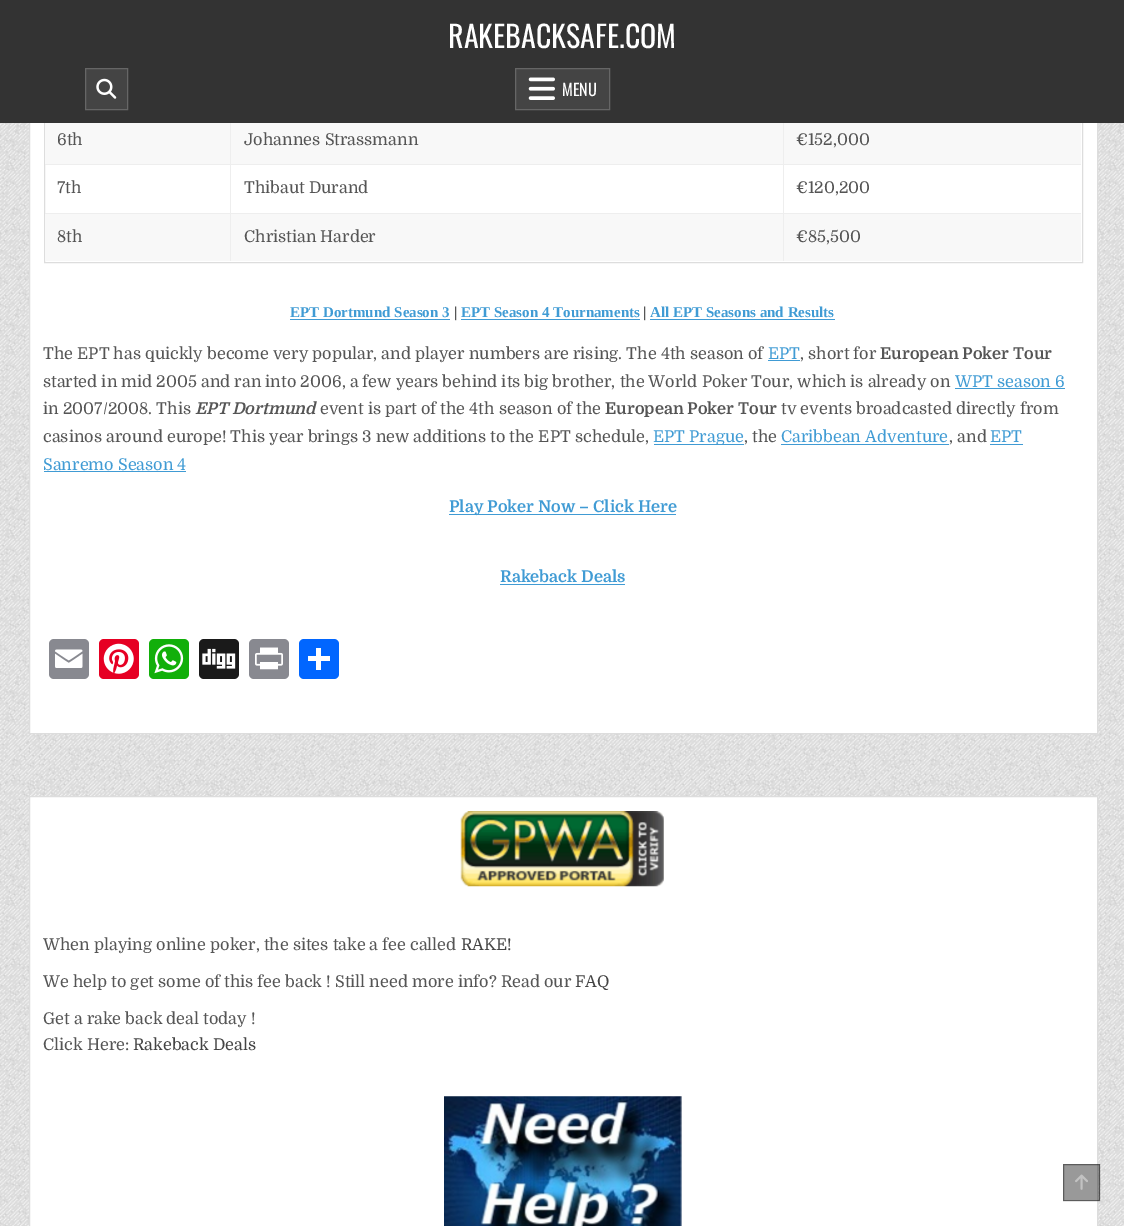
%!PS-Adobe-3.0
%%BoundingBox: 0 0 1124 1226
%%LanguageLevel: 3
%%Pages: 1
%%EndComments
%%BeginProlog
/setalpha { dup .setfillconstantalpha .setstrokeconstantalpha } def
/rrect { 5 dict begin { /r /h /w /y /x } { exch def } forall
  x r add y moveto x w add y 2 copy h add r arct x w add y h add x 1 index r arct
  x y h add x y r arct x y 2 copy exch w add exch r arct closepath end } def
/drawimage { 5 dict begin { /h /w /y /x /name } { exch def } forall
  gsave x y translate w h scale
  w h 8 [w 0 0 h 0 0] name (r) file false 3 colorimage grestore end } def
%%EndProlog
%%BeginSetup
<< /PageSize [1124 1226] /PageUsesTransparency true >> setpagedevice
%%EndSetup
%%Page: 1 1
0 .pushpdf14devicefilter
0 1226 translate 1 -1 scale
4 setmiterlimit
1 setgray
0 0 1124 1226 rectfill
(images/1.raw) 0 123 1124 1103 drawimage
30 123 1067 610 rectfill
0.867 setgray
29.5 -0.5 1068 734 rectstroke
44.5 -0.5 1038 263 rectstroke
0.933 setgray
230 115 1 49 rectfill
783 115 1 49 rectfill
0.2 setgray
0 0 1124 123 rectfill
0.267 setgray
newpath 85.5 68.5 moveto 127.5 68.5 lineto 127.5 109.5 lineto 85.5 109.5 lineto closepath gsave fill grestore
0.4 setgray
stroke
(images/2.raw) 96 78 21 21 drawimage
0.267 setgray
newpath 515.5 68.5 moveto 609.5 68.5 lineto 609.5 109.5 lineto 515.5 109.5 lineto closepath gsave fill grestore
0.4 setgray
stroke
(images/3.raw) 528 77 27 23 drawimage
0.973 setgray
45 123 185 41 rectfill
231 123 552 41 rectfill
784 123 297 41 rectfill
0.933 setgray
45 164 1036 1 rectfill
230 164 1 49 rectfill
783 164 1 49 rectfill
0.973 setgray
45 214 185 47 rectfill
0.933 setgray
45 213 1036 1 rectfill
230 213 1 48 rectfill
0.973 setgray
231 214 552 47 rectfill
0.933 setgray
783 213 1 48 rectfill
0.973 setgray
784 214 297 47 rectfill
0.251 0.608 0.831 setrgbcolor
290 319 160 1 rectfill
461 319 179 1 rectfill
650 319 185 1 rectfill
768 360 32 1 rectfill
955 388 110 1 rectfill
654 444 90 1 rectfill
781 444 168 1 rectfill
990 444 33 1 rectfill
44 471 142 1 rectfill
449 514 227 1 rectfill
500 584 125 1 rectfill
0.533 0.537 0.565 setrgbcolor
49 639 40 40 5 rrect fill
(images/4.raw) 55 649 28 19 drawimage
0.902 0 0.137 setrgbcolor
99 639 40 40 5 rrect fill
(images/5.raw) 103 643 31 31 drawimage
0.071 0.686 0.039 setrgbcolor
149 639 40 40 5 rrect fill
(images/6.raw) 154 644 30 30 drawimage
0.102 setgray
199 639 40 40 5 rrect fill
(images/7.raw) 202 648 34 21 drawimage
0.533 0.537 0.565 setrgbcolor
249 639 40 40 5 rrect fill
(images/8.raw) 255 647 28 23 drawimage
0.004 0.4 1 setrgbcolor
299 639 40 40 5 rrect fill
1 setgray
316 648 5 22 rectfill
308 656 22 5 rectfill
newpath 29.5 796.5 moveto 1097.5 796.5 lineto 1097.5 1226.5 lineto 29.5 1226.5 lineto closepath gsave fill grestore
0.867 setgray
stroke
(images/9.raw) 460 811 204 76 drawimage
(images/10.raw) 444 1096 238 130 drawimage
0.4 setalpha
0 setgray
1063 1164 37 37 rectfill
1063.5 1164.5 36 36 rectstroke
1 setalpha
(images/11.raw) 1075 1174 13 16 drawimage
/Oswald-Regular [30 0 0 -30 0 0] selectfont
1 setgray
448 48 moveto (RAKEBACKSAFE.COM) show
/Oswald-Regular [16.25 0 0 -16.25 0 0] selectfont
562 96 moveto (MENU) show
/Domine-Regular [16.25 0 0 -16.25 0 0] selectfont
0.333 setgray
57 145 moveto (6th) show
244 145 moveto (Johannes Strassmann) show
796 145 moveto (€152,000) show
57 193 moveto (7th) show
244 193 moveto (Thibaut Durand) show
796 193 moveto (€120,200) show
57 242 moveto (8th) show
244 242 moveto (Christian Harder) show
796 242 moveto (€85,500) show
/LiberationSerif-Bold [15 0 0 -15 0 0] selectfont
0.251 0.608 0.831 setrgbcolor
290 317 moveto (EPT Dortmund Season 3) show
0.333 setgray
454 317 moveto (|) show
0.251 0.608 0.831 setrgbcolor
461 317 moveto (EPT Season 4 Tournaments) show
0.333 setgray
643 317 moveto (|) show
0.251 0.608 0.831 setrgbcolor
650 317 moveto (All EPT Seasons and Results) show
/Domine-Regular [16.25 0 0 -16.25 0 0] selectfont
0.333 setgray
43 359 moveto (The EPT has quickly become very popular, and player numbers are rising. The 4th season of) show
0.251 0.608 0.831 setrgbcolor
768 359 moveto (EPT) show
0.333 setgray
800 359 moveto (, short for) show
/Domine-Bold [16.25 0 0 -16.25 0 0] selectfont
880 359 moveto (European Poker Tour) show
/Domine-Regular [16.25 0 0 -16.25 0 0] selectfont
43 387 moveto (started in mid 2005 and ran into 2006, a few years behind its big brother, the World Poker Tour, which is already on) show
0.251 0.608 0.831 setrgbcolor
955 387 moveto (WPT season 6) show
0.333 setgray
43 414 moveto (in 2007/2008. This) show
/Domine-BoldItalic [16.25 0 0 -16.25 0 0] selectfont
195 414 moveto (EPT Dortmund) show
/Domine-Regular [16.25 0 0 -16.25 0 0] selectfont
320 414 moveto (event is part of the 4th season of the) show
/Domine-Bold [16.25 0 0 -16.25 0 0] selectfont
605 414 moveto (European Poker Tour) show
/Domine-Regular [16.25 0 0 -16.25 0 0] selectfont
781 414 moveto (tv events broadcasted directly from) show
43 442 moveto (casinos around europe! This year brings 3 new additions to the EPT schedule,) show
0.251 0.608 0.831 setrgbcolor
653 442 moveto (EPT Prague) show
0.333 setgray
744 442 moveto (, the) show
0.251 0.608 0.831 setrgbcolor
781 442 moveto (Caribbean Adventure) show
0.333 setgray
949 442 moveto (, and) show
0.251 0.608 0.831 setrgbcolor
990 442 moveto (EPT) show
43 470 moveto (Sanremo Season 4) show
/Domine-Bold [16.25 0 0 -16.25 0 0] selectfont
449 512 moveto (Play Poker Now – Click Here) show
500 582 moveto (Rakeback Deals) show
/Domine-Regular [16.25 0 0 -16.25 0 0] selectfont
0.333 setgray
43 950 moveto (When playing online poker, the sites take a fee called) show
0.267 setgray
461 950 moveto (RAKE!) show
0.333 setgray
43 987 moveto (We help to get some of this fee back ! Still need more info? Read our) show
0.267 setgray
575 987 moveto (FAQ) show
0.333 setgray
43 1024 moveto (Get a rake back deal today !) show
43 1050 moveto (Click Here:) show
0.267 setgray
133 1050 moveto (Rakeback Deals) show
.poppdf14devicefilter showpage
%%EOF
